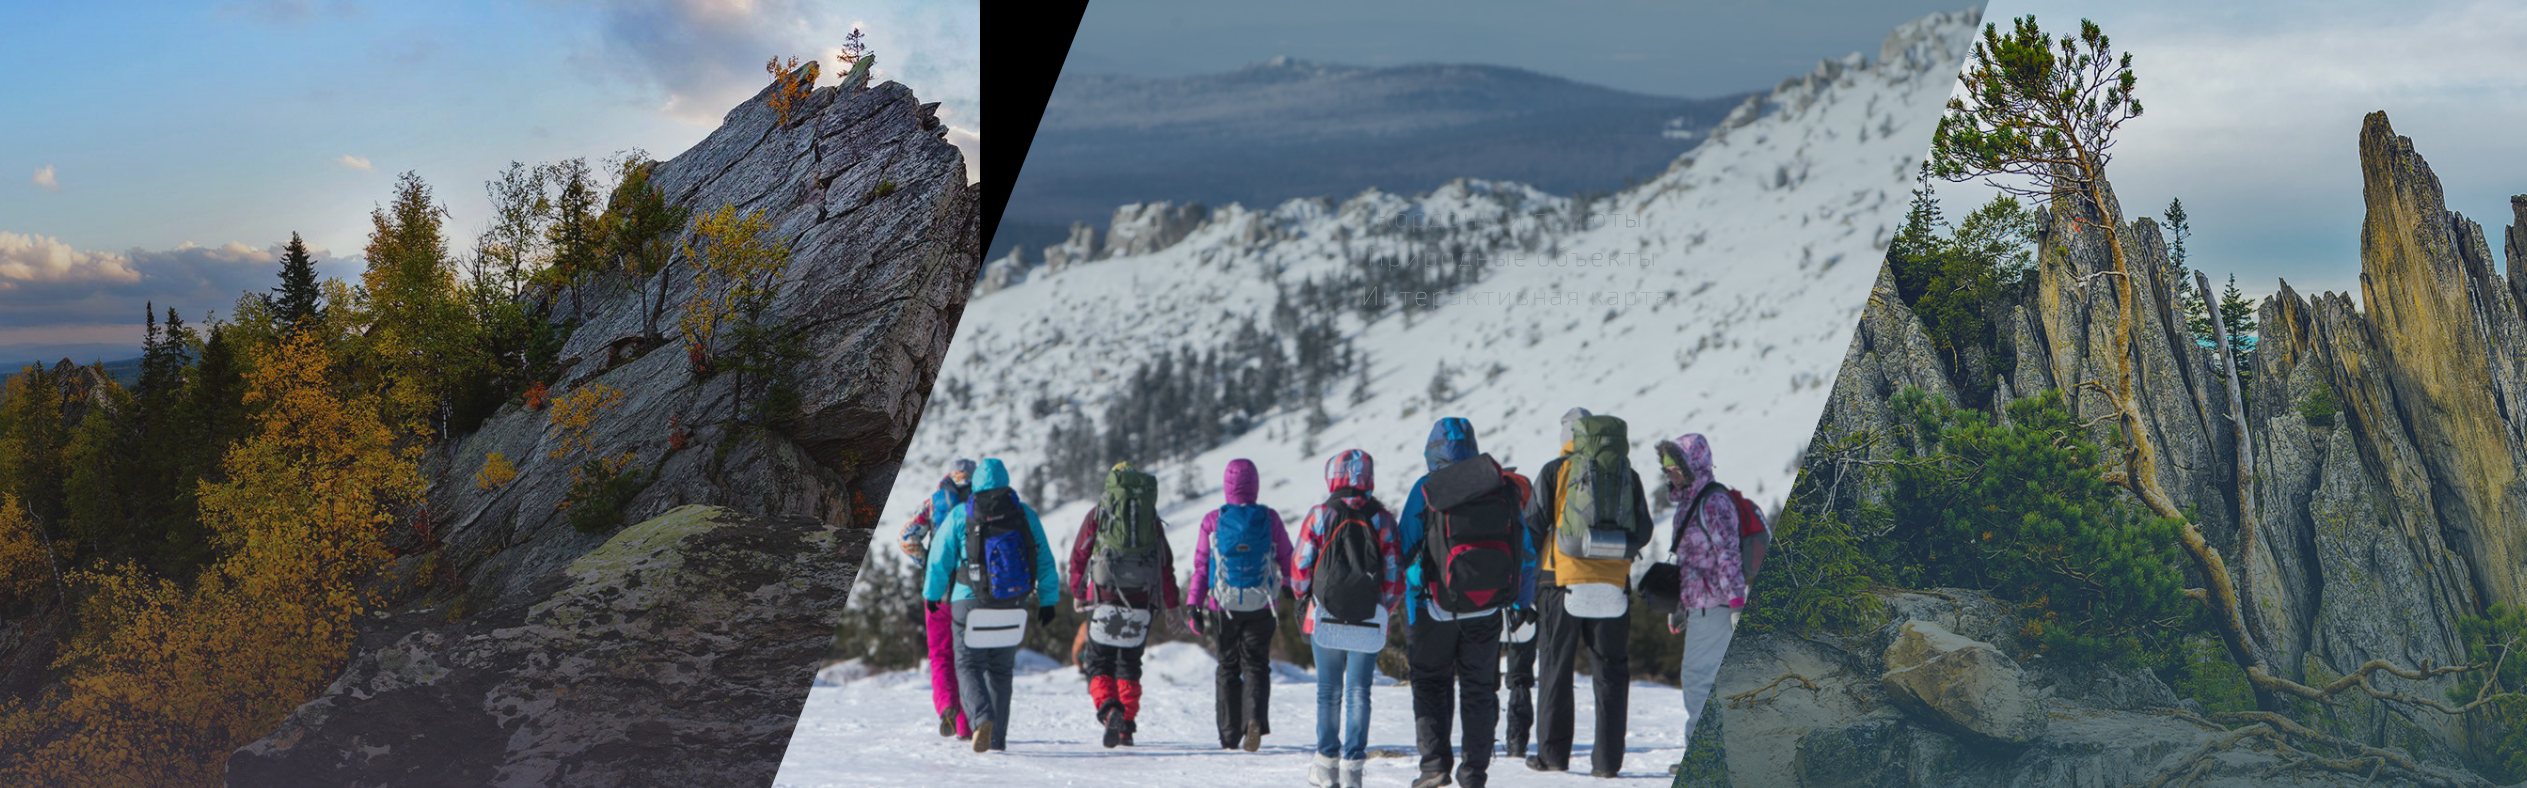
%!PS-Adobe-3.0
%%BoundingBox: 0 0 2527 788
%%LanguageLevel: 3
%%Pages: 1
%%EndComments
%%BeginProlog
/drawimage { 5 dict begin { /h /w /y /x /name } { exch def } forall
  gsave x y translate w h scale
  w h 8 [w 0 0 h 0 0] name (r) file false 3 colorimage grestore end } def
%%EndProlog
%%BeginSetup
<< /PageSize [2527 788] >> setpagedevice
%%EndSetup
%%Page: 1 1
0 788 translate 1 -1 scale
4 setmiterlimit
0 setgray
0 0 2527 788 rectfill
(images/1.raw) 0 0 980 788 drawimage
(images/3.raw) 1671 0 856 788 drawimage
(images/2.raw) 771 0 1218 788 drawimage
/Exo2-Thin [26.75 0 0 -26.75 0 0] selectfont
0.486 0.537 0.573 setrgbcolor
1376 227 moveto -2 0 32 2.5 0 (Кордоны и приюты) awidthshow
0.533 0.576 0.604 setrgbcolor
1367 266 moveto -2 0 32 2.5 0 (Природные объекты) awidthshow
0.584 0.627 0.647 setrgbcolor
1361 305 moveto -2 0 32 2.5 0 (Интерактивная карта) awidthshow
/Exo2-Thin [38 0 0 -38 0 0] selectfont
0.29 0.337 0.345 setrgbcolor
2211 481 moveto 2.5 0 (р) ashow
showpage
%%EOF
